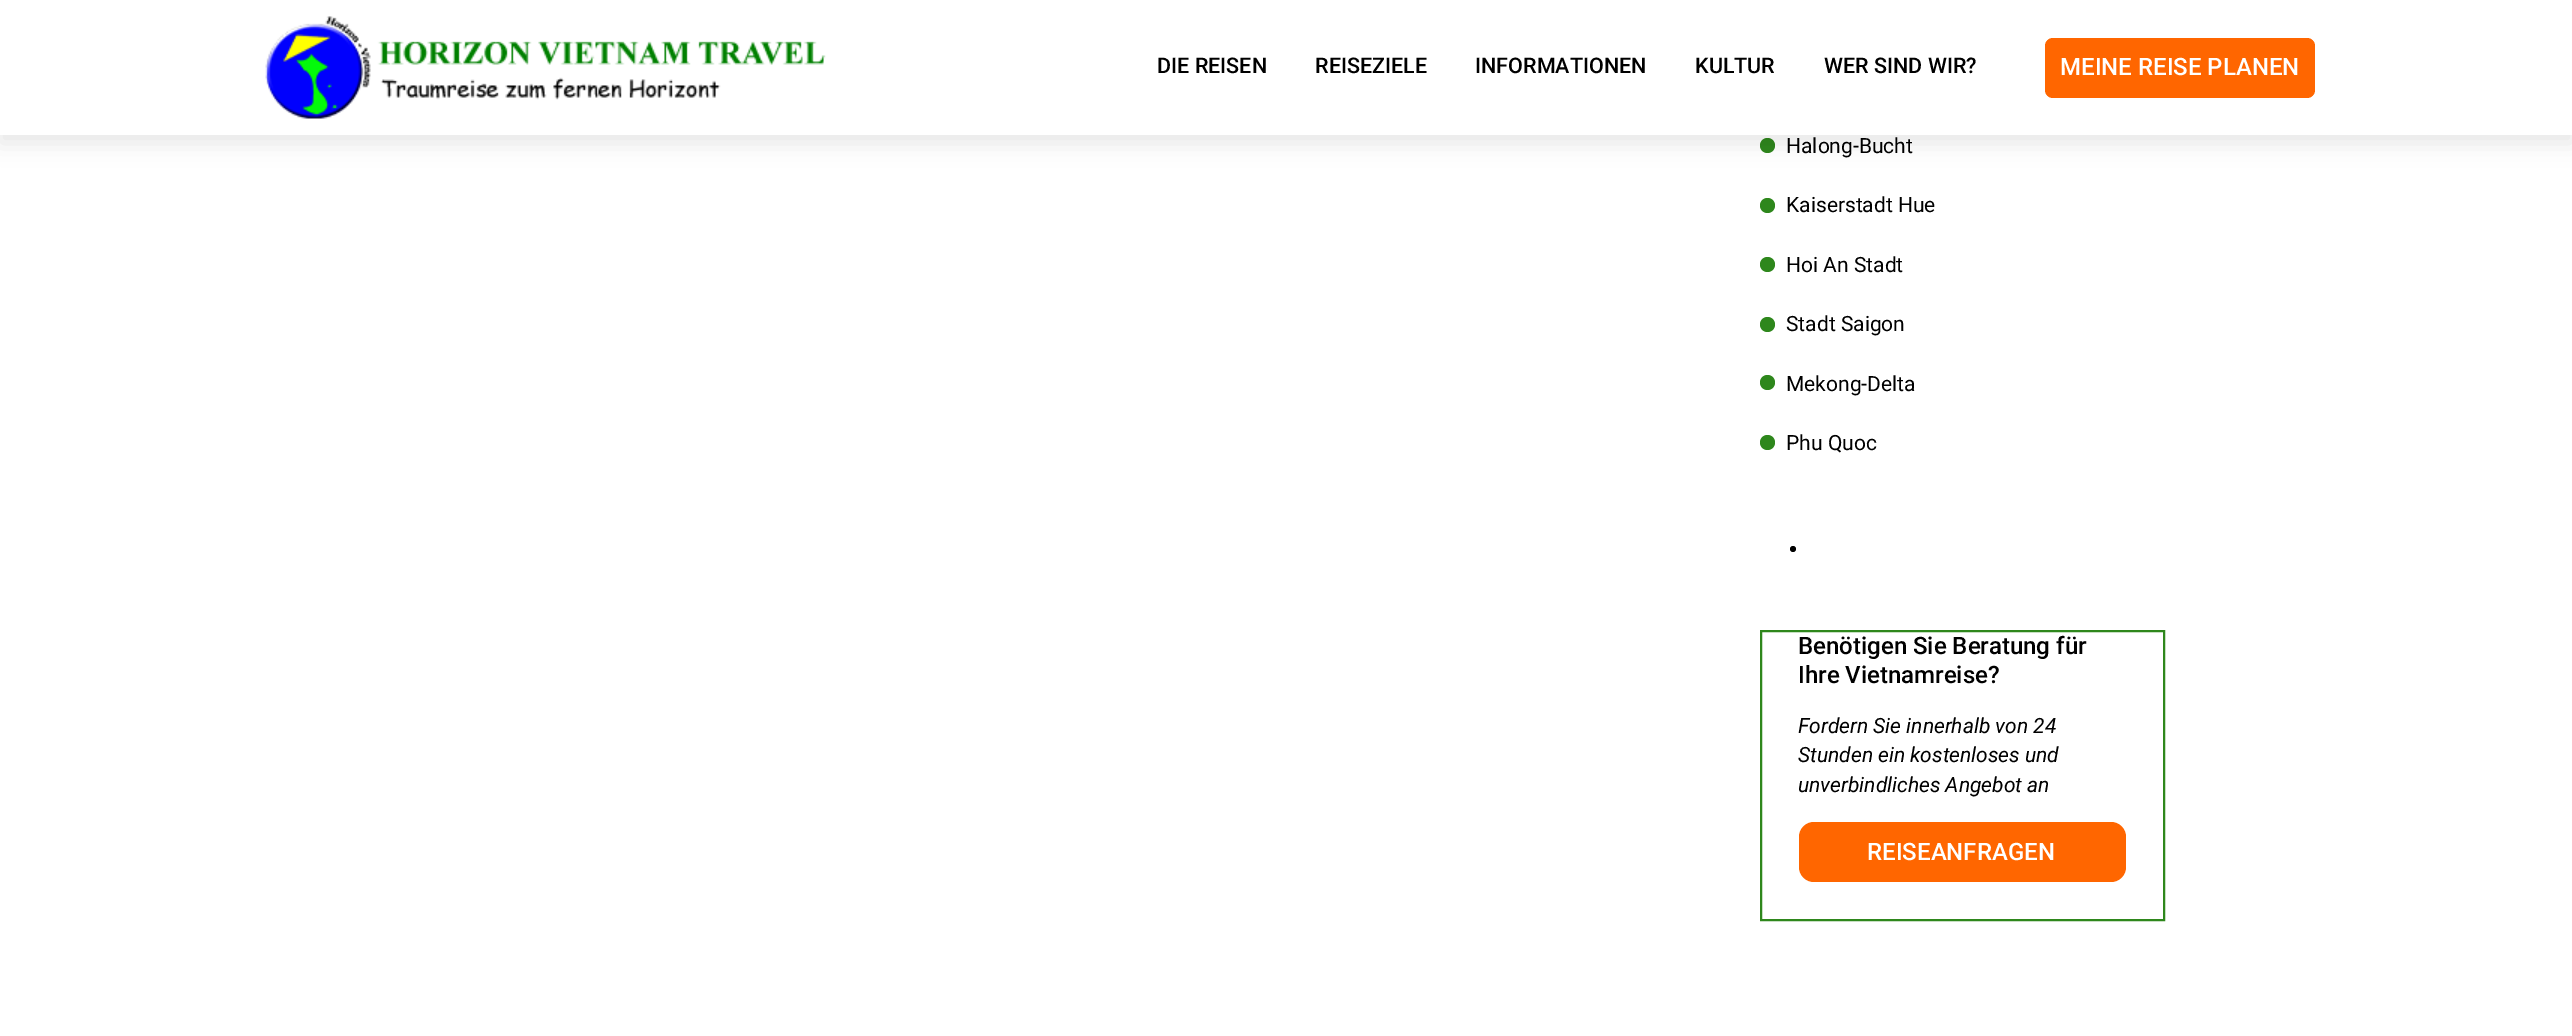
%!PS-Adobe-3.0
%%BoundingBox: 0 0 2572 1036
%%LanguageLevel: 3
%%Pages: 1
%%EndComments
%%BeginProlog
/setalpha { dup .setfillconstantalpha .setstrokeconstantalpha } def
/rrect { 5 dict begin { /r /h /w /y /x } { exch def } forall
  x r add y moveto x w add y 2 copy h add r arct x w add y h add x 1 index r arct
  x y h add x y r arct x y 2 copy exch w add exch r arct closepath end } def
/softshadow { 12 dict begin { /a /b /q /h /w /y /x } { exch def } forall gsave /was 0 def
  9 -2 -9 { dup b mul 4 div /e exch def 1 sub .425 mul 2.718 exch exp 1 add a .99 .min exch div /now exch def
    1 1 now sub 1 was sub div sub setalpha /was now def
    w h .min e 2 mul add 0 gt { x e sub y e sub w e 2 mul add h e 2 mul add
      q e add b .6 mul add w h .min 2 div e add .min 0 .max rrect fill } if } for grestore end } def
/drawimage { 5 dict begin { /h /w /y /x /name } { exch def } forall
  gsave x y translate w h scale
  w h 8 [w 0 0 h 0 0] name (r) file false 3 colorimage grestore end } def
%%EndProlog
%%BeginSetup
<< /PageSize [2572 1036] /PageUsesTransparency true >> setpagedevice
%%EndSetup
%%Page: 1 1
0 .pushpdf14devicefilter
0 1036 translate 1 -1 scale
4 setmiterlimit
1 setgray
0 0 2572 1036 rectfill
0.18 0.529 0.11 setrgbcolor
newpath 1767.5 145.5 7.5 0 360 arc closepath fill
0 setgray
0 8 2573 135 0 11 0.1 softshadow
1 setgray
0 0 2572 135 rectfill
(images/1.raw) 265 16 561 103 drawimage
1 0.4 0 setrgbcolor
2045 38 270 60 8 rrect fill
0.18 0.529 0.11 setrgbcolor
newpath 1767.5 205.5 7.5 0 360 arc closepath fill
newpath 1767.5 264.5 7.5 0 360 arc closepath fill
newpath 1767.5 324.5 7.5 0 360 arc closepath fill
newpath 1767.5 382.5 7.5 0 360 arc closepath fill
newpath 1767.5 442.5 7.5 0 360 arc closepath fill
0 setgray
newpath 1793 549 3 0 360 arc closepath fill
0.18 0.529 0.11 setrgbcolor
2 setlinewidth
1761 631 403 289 rectstroke
1 0.4 0 setrgbcolor
1799 822 327 60 15 rrect fill
/Roboto-Medium [21.5 0 0 -21.5 0 0] selectfont
0 setgray
1157 73 moveto (DIE REISEN) show
1315 73 moveto (REISEZIELE) show
1475 73 moveto (INFORMATIONEN) show
1695 73 moveto (KULTUR) show
1824 73 moveto (WER SIND WIR?) show
/Roboto-Medium [24 0 0 -24 0 0] selectfont
1 setgray
2060 75 moveto (MEINE REISE PLANEN) show
/Roboto-Regular [21 0 0 -21 0 0] selectfont
0 setgray
1786 153 moveto (Halong-Bucht) show
1786 212 moveto (Kaiserstadt Hue) show
1786 272 moveto (Hoi An Stadt) show
1786 331 moveto (Stadt Saigon) show
1786 391 moveto (Mekong-Delta) show
1786 450 moveto (Phu Quoc) show
/Roboto-Medium [24 0 0 -24 0 0] selectfont
1798 654 moveto (Benötigen Sie Beratung für) show
1798 683 moveto (Ihre Vietnamreise?) show
/Roboto-Italic [21 0 0 -21 0 0] selectfont
1798 733 moveto (Fordern Sie innerhalb von 24) show
1798 762 moveto (Stunden ein kostenloses und) show
1798 792 moveto (unverbindliches Angebot an) show
/Roboto-Medium [24 0 0 -24 0 0] selectfont
1 setgray
1867 860 moveto (REISEANFRAGEN) show
.poppdf14devicefilter showpage
%%EOF
